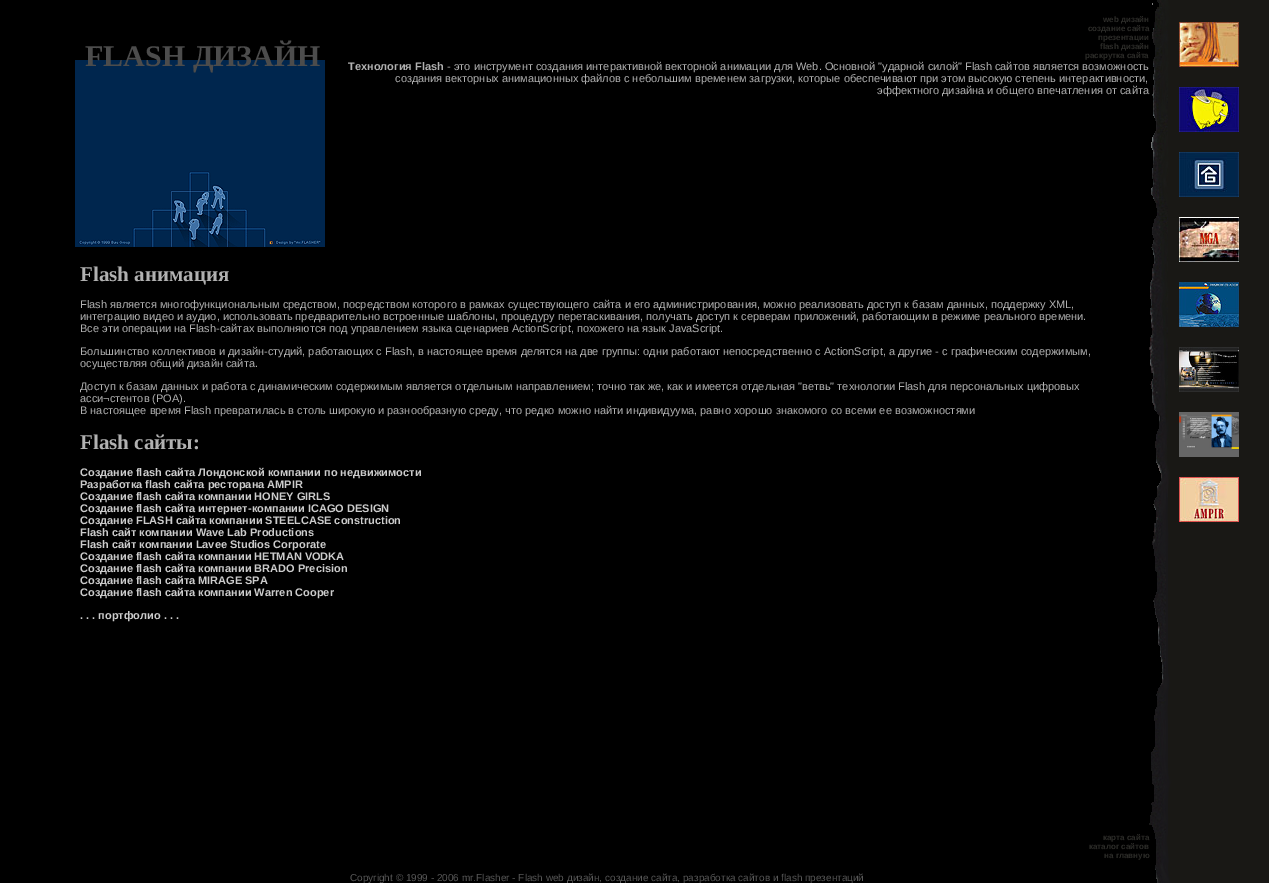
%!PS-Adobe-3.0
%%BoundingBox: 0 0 1269 883
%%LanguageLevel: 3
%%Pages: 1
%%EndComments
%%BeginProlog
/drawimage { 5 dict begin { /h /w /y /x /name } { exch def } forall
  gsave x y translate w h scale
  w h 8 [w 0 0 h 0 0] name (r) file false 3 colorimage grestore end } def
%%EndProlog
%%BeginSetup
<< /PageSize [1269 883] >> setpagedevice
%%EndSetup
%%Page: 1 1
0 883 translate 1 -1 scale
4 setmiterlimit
0 setgray
0 0 1269 883 rectfill
(images/1.raw) 75 60 250 187 drawimage
(images/2.raw) 1149 0 120 883 drawimage
(images/3.raw) 1179 22 60 45 drawimage
(images/4.raw) 1179 87 60 45 drawimage
(images/5.raw) 1179 152 60 45 drawimage
(images/6.raw) 1179 217 60 45 drawimage
(images/7.raw) 1179 282 60 45 drawimage
(images/8.raw) 1179 347 60 45 drawimage
(images/9.raw) 1179 412 60 45 drawimage
(images/10.raw) 1179 477 60 45 drawimage
/LiberationSans-Bold [8 0 0 -8 0 0] selectfont
0.18 0.176 0.165 setrgbcolor
1103 22 moveto (web дизайн) show
1088 31 moveto (создание сайта) show
1098 40 moveto (презентации) show
1100 49 moveto (flash дизайн) show
1085 58 moveto (раскрутка сайта) show
/LiberationSans-Bold [11 0 0 -11 0 0] selectfont
0.694 setgray
348 70 moveto (Технология Flash) show
/LiberationSans-Regular [11 0 0 -11 0 0] selectfont
447 70 moveto (- это инструмент создания интерактивной векторной анимации для Web. Основной "ударной силой" Flash сайтов является возможность) show
395 82 moveto (создания векторных анимационных файлов с небольшим временем загрузки, которые обеспечивают при этом высокую степень интерактивности,) show
877 94 moveto (эффектного дизайна и общего впечатления от сайта) show
/LiberationSerif-Bold [21 0 0 -21 0 0] selectfont
80 281 moveto (Flash анимация) show
/LiberationSans-Regular [11 0 0 -11 0 0] selectfont
80 308 moveto (Flash является многофункциональным средством, посредством которого в рамках существующего сайта и его администрирования, можно реализовать доступ к базам данных, поддержку XML,) show
80 320 moveto (интеграцию видео и аудио, использовать предварительно встроенные шаблоны, процедуру перетаскивания, получать доступ к серверам приложений, работающим в режиме реального времени.) show
80 332 moveto (Все эти операции на Flash-сайтах выполняются под управлением языка сценариев АсtiопSсriрt, похожего на язык JavaScript.) show
80 355 moveto (Большинство коллективов и дизайн-студий, работающих с Flash, в настоящее время делятся на две группы: одни работают непосредственно с ActionScript, а другие - с графическим содержимым,) show
80 367 moveto (осуществляя общий дизайн сайта.) show
80 390 moveto (Доступ к базам данных и работа с динамическим содержимым является отдельным направлением; точно так же, как и имеется отдельная "ветвь" технологии Flash для персональных цифровых) show
80 402 moveto (асси¬стентов \(РОА\).) show
80 414 moveto (В настоящее время Flash превратилась в столь широкую и разнообразную среду, что редко можно найти индивидуума, равно хорошо знакомого со всеми ее возможностями) show
/LiberationSerif-Bold [21 0 0 -21 0 0] selectfont
80 449 moveto (Flash сайты:) show
/LiberationSans-Bold [11 0 0 -11 0 0] selectfont
0.8 setgray
80 476 moveto (Создание flash сайта Лондонской компании по недвижимости) show
80 488 moveto (Разработка flash сайта ресторана AMPIR) show
80 500 moveto (Создание flash сайта компании HONEY GIRLS) show
80 512 moveto (Создание flash сайта интернет-компании ICAGO DESIGN) show
80 524 moveto (Создание FLASH сайта компании STEELCASE construction) show
80 536 moveto (Flash сайт компании Wave Lab Productions) show
80 548 moveto (Flash сайт компании Lavee Studios Corporate) show
80 560 moveto (Создание flash сайта компании HETMAN VODKA) show
80 572 moveto (Создание flash сайта компании BRADO Precision) show
80 584 moveto (Создание flash сайта MIRAGE SPA) show
80 596 moveto (Создание flash сайта компании Warren Cooper) show
80 619 moveto (. . . портфолио . . .) show
/LiberationSans-Bold [8 0 0 -8 0 0] selectfont
0.18 0.176 0.165 setrgbcolor
1103 840 moveto (карта сайта) show
1089 849 moveto (каталог сайтов) show
1104 858 moveto (на главную) show
/LiberationSans-Regular [10 0 0 -10 0 0] selectfont
0.345 setgray
350 881 moveto (Copyright © 1999 - 2006 mr.Flasher - Flash web дизайн, создание сайта, разработка сайтов и flash презентаций) show
/LiberationSerif-Bold [30 0 0 -30 0 0] selectfont
0.298 setgray
85 66 moveto (FLASH ДИЗАЙН) show
showpage
%%EOF
